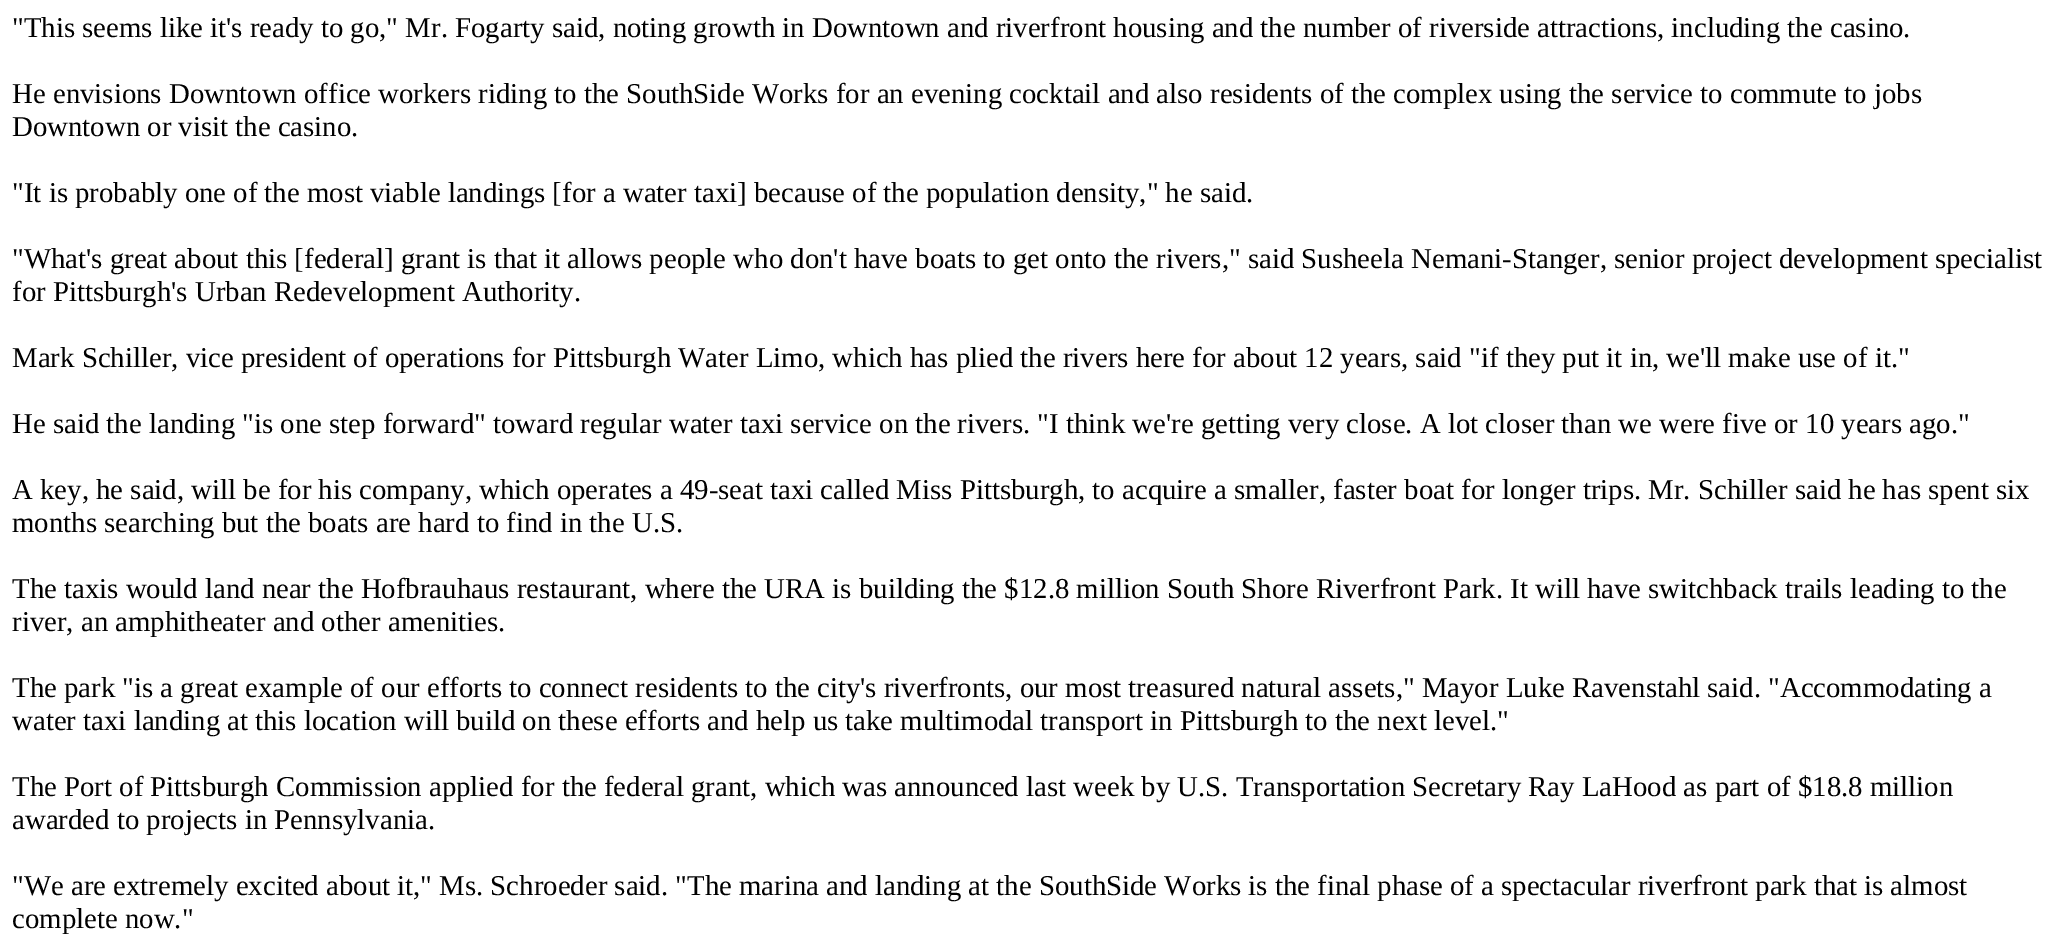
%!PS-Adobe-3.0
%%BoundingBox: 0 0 2055 951
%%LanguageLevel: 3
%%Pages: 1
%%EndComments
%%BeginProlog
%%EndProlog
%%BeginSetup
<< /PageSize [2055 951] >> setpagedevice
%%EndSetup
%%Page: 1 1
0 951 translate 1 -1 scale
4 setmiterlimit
1 setgray
0 0 2055 951 rectfill
/LiberationSerif-Regular [28.8 0 0 -28.8 0 0] selectfont
0 setgray
12 37 moveto ("This seems like it's ready to go," Mr. Fogarty said, noting growth in Downtown and riverfront housing and the number of riverside attractions, including the casino.) show
12 103 moveto (He envisions Downtown office workers riding to the SouthSide Works for an evening cocktail and also residents of the complex using the service to commute to jobs) show
12 136 moveto (Downtown or visit the casino.) show
12 202 moveto ("It is probably one of the most viable landings [for a water taxi] because of the population density," he said.) show
12 268 moveto ("What's great about this [federal] grant is that it allows people who don't have boats to get onto the rivers," said Susheela Nemani-Stanger, senior project development specialist) show
12 301 moveto (for Pittsburgh's Urban Redevelopment Authority.) show
12 367 moveto (Mark Schiller, vice president of operations for Pittsburgh Water Limo, which has plied the rivers here for about 12 years, said "if they put it in, we'll make use of it.") show
12 433 moveto (He said the landing "is one step forward" toward regular water taxi service on the rivers. "I think we're getting very close. A lot closer than we were five or 10 years ago.") show
12 499 moveto (A key, he said, will be for his company, which operates a 49-seat taxi called Miss Pittsburgh, to acquire a smaller, faster boat for longer trips. Mr. Schiller said he has spent six) show
12 532 moveto (months searching but the boats are hard to find in the U.S.) show
12 598 moveto (The taxis would land near the Hofbrauhaus restaurant, where the URA is building the $12.8 million South Shore Riverfront Park. It will have switchback trails leading to the) show
12 631 moveto (river, an amphitheater and other amenities.) show
12 697 moveto (The park "is a great example of our efforts to connect residents to the city's riverfronts, our most treasured natural assets," Mayor Luke Ravenstahl said. "Accommodating a) show
12 730 moveto (water taxi landing at this location will build on these efforts and help us take multimodal transport in Pittsburgh to the next level.") show
12 796 moveto (The Port of Pittsburgh Commission applied for the federal grant, which was announced last week by U.S. Transportation Secretary Ray LaHood as part of $18.8 million) show
12 829 moveto (awarded to projects in Pennsylvania.) show
12 895 moveto ("We are extremely excited about it," Ms. Schroeder said. "The marina and landing at the SouthSide Works is the final phase of a spectacular riverfront park that is almost) show
12 928 moveto (complete now.") show
showpage
%%EOF
